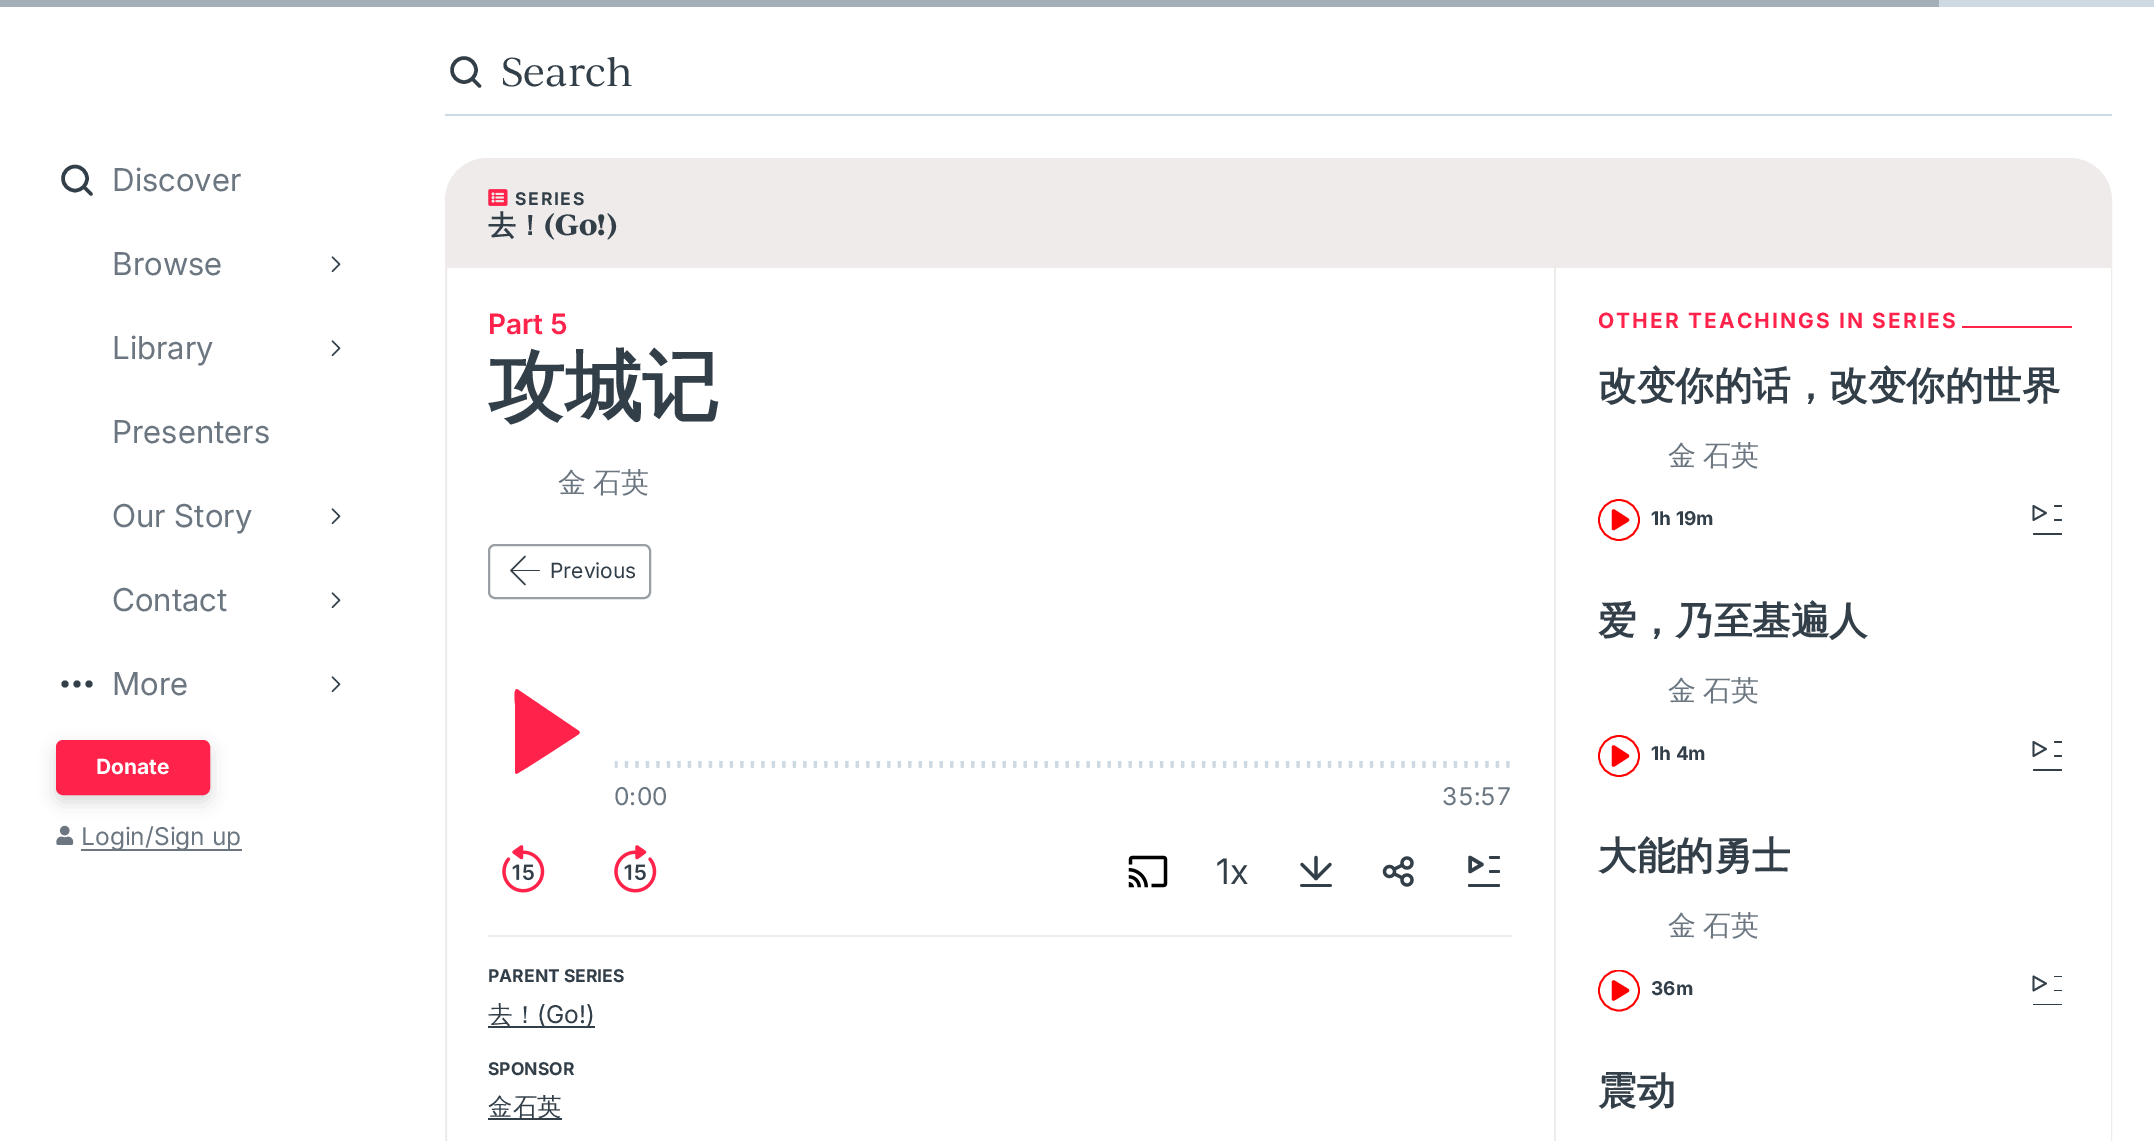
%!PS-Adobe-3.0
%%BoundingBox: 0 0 2154 1141
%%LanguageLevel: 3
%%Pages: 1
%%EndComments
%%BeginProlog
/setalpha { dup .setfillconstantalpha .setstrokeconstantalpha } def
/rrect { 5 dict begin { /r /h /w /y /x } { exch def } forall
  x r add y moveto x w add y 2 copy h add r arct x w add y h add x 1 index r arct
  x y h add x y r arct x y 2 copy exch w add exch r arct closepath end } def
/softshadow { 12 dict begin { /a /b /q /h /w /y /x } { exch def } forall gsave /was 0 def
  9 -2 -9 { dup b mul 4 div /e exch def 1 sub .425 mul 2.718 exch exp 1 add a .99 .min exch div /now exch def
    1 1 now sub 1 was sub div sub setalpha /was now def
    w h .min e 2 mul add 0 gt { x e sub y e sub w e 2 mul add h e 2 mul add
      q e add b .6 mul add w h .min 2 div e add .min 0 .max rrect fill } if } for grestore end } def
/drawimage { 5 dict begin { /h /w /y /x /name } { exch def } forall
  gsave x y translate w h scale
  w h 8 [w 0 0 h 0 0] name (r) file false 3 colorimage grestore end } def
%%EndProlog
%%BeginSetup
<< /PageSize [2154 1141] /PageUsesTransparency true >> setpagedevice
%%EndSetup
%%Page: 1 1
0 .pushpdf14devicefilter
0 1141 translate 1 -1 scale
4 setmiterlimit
1 setgray
0 0 2154 1141 rectfill
0.804 0.851 0.89 setrgbcolor
1939 0 215 7 rectfill
0.647 0.686 0.722 setrgbcolor
0 0 1939 7 rectfill
0.196 0.243 0.282 setrgbcolor
3.5 setlinewidth
newpath 75 178.5 12 0 360 arc closepath stroke
1 setlinecap
newpath 84 187 moveto 91 194 lineto stroke
(images/1.raw) 331 256 10 17 drawimage
(images/1.raw) 331 340 10 17 drawimage
(images/1.raw) 331 508 10 17 drawimage
(images/1.raw) 331 592 10 17 drawimage
newpath 65 684 3.5 0 360 arc closepath fill
newpath 77 684 3.5 0 360 arc closepath fill
newpath 89 684 3.5 0 360 arc closepath fill
(images/1.raw) 331 676 10 17 drawimage
0 setgray
56 747 154 55 7 9 0.15 softshadow
1 0.133 0.29 setrgbcolor
57 741 152 53 6 rrect gsave fill grestore
2 setlinewidth
0 setlinecap
stroke
(images/2.raw) 56 825 18 20 drawimage
0.42 0.463 0.502 setrgbcolor
81 849 161 2 rectfill
0.804 0.851 0.89 setrgbcolor
445 114 1667 2 rectfill
0.196 0.243 0.282 setrgbcolor
3.5 setlinewidth
newpath 464 70 12 0 360 arc closepath stroke
1 setlinecap
newpath 472.5 79 moveto 479.5 86 lineto stroke
0.937 0.922 0.922 setrgbcolor
2 setlinewidth
0 setlinecap
446 159 1665 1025 41 rrect stroke
newpath 486 159 moveto 2071 159 lineto 2093 159 2111 177 2111 199 curveto 2111 268 lineto 446 268 lineto 446 199 lineto 446 177 464 159 486 159 curveto closepath fill
(images/3.raw) 488 189 20 17 drawimage
0.6 0.624 0.643 setrgbcolor
489 545 161 53 6 rrect stroke
(images/4.raw) 510 555 30 31 drawimage
1 0.133 0.29 setrgbcolor
newpath 515 772 moveto 515 704 lineto 515 702 513 689 517 689 curveto 579 731 lineto 580 732 580 733 579 734 curveto 573 738 518 774 516 774 curveto 516 774 515 773 515 772 curveto fill
(images/5.raw) 614 761 896 7 drawimage
(images/6.raw) 502 845 43 48 drawimage
(images/7.raw) 614 845 43 48 drawimage
(images/8.raw) 1128 855 40 33 drawimage
(images/9.raw) 1300 855 32 32 drawimage
(images/10.raw) 1382 856 32 31 drawimage
0.196 0.243 0.282 setrgbcolor
1489 856 11 3 1.5 rrect fill
3.5 setlinewidth
1 setlinejoin
newpath 1482 864.5 moveto 1470 857.5 lineto 1470 871.5 lineto closepath stroke
1489 870 11 3 1.5 rrect fill
1468 884 32 3 1.5 rrect fill
0.937 0.922 0.922 setrgbcolor
488 935 1024 2 rectfill
0.196 0.243 0.282 setrgbcolor
488 1026 107 2 rectfill
488 1118 74 2 rectfill
1 setgray
2110 268 1 873 rectfill
0.937 0.922 0.922 setrgbcolor
1554 268 2 873 rectfill
1 0.133 0.29 setrgbcolor
1962 326 110 2 rectfill
1 0 0 setrgbcolor
newpath 1613.5 528.5 moveto 1613.5 511 lineto 1627.5 520 lineto closepath gsave fill grestore
stroke
1.8 setlinewidth
0 setlinejoin
newpath 1619 520 20 0 360 arc closepath stroke
0.196 0.243 0.282 setrgbcolor
2054 505 8 2 1 rrect fill
1 setlinejoin
newpath 2046 513 moveto 2033.5 506 lineto 2033.5 520 lineto closepath stroke
2054 519 8 2 1 rrect fill
2033 533 29 2 1 rrect fill
1 0 0 setrgbcolor
newpath 1613.5 765 moveto 1613.5 747 lineto 1627.5 756 lineto closepath gsave fill grestore
3.5 setlinewidth
stroke
1.8 setlinewidth
0 setlinejoin
newpath 1619 756 20 0 360 arc closepath stroke
0.196 0.243 0.282 setrgbcolor
2054 741 8 2 1 rrect fill
1 setlinejoin
newpath 2046 749 moveto 2033.5 742 lineto 2033.5 756 lineto closepath stroke
2054 755 8 2 1 rrect fill
2033 769 29 2 1 rrect fill
1 0 0 setrgbcolor
newpath 1613.5 999 moveto 1613.5 982 lineto 1627.5 990.5 lineto closepath gsave fill grestore
3.5 setlinewidth
stroke
gsave
1598 970 42 42 rectclip
1.8 setlinewidth
0 setlinejoin
newpath 1619 990.5 20 0 360 arc closepath stroke
grestore
0.196 0.243 0.282 setrgbcolor
2054 976 8 1 0.5 rrect fill
1.8 setlinewidth
newpath 2046 983.5 moveto 2033.5 976.5 lineto 2033.5 990.5 lineto closepath stroke
2054 990 8 1 0.5 rrect fill
2033 1004 29 1 0.5 rrect fill
/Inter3-Regular [31.5 0 0 -31.5 0 0] selectfont
0.42 0.463 0.502 setrgbcolor
112 191 moveto (Discover) show
112 275 moveto (Browse) show
112 359 moveto (Library) show
112 443 moveto (Presenters) show
112 527 moveto (Our Story) show
112 611 moveto (Contact) show
112 695 moveto (More) show
/Inter-Bold [21 0 0 -21 0 0] selectfont
1 setgray
96 774 moveto (Donate) show
/Inter-Regular [24.5 0 0 -24.5 0 0] selectfont
0.42 0.463 0.502 setrgbcolor
81 845 moveto (Login/Sign up) show
/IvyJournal-Regular [38.5 0 0 -38.5 0 0] selectfont
0.196 0.243 0.282 setrgbcolor
501 86 moveto (Search) show
/Inter-Bold [17.5 0 0 -17.5 0 0] selectfont
515 205 moveto 1.75 0 (SERIES) ashow
/WenQuanYiZenHei-Bold [28 0 0 -28 0 0] selectfont
488 235 moveto (去！) show
/IvyJournal-Bold [28 0 0 -28 0 0] selectfont
544 235 moveto (\(Go!\)) show
/Inter-SemiBold [28 0 0 -28 0 0] selectfont
1 0.133 0.29 setrgbcolor
488 334 moveto (Part 5) show
/WenQuanYiZenHei-Bold [77 0 0 -77 0 0] selectfont
0.196 0.243 0.282 setrgbcolor
488 413 moveto (攻城记) show
/WenQuanYiZenHei-Medium [28 0 0 -28 0 0] selectfont
0.42 0.463 0.502 setrgbcolor
558 492 moveto -1 0 32 (金 石英) widthshow
/Inter-Regular [21 0 0 -21 0 0] selectfont
0.196 0.243 0.282 setrgbcolor
550 578 moveto (Previous) show
/Inter-Regular [24.5 0 0 -24.5 0 0] selectfont
0.42 0.463 0.502 setrgbcolor
614 805 moveto (0:00) show
/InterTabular-Regular [24.5 0 0 -24.5 0 0] selectfont
1442 805 moveto (35:57) show
/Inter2-Regular [35 0 0 -35 0 0] selectfont
0.196 0.243 0.282 setrgbcolor
1216 884 moveto (1x) show
/Inter-Bold [17.5 0 0 -17.5 0 0] selectfont
488 982 moveto (PARENT SERIES) show
/WenQuanYiZenHei-Medium [24.5 0 0 -24.5 0 0] selectfont
488 1023 moveto (去！) show
/Inter-Regular [24.5 0 0 -24.5 0 0] selectfont
537 1023 moveto (\(Go!\)) show
/Inter-Bold [17.5 0 0 -17.5 0 0] selectfont
488 1075 moveto (SPONSOR) show
/WenQuanYiZenHei-Medium [24.5 0 0 -24.5 0 0] selectfont
488 1115 moveto (金石英) show
/Inter-Bold [21 0 0 -21 0 0] selectfont
1 0.133 0.29 setrgbcolor
1598 328 moveto 2.1 0 (OTHER TEACHINGS IN SERIES) ashow
/WenQuanYiZenHei-Bold [38.5 0 0 -38.5 0 0] selectfont
0.196 0.243 0.282 setrgbcolor
1598 399 moveto (改变你的话，改变你的世界) show
/WenQuanYiZenHei-Medium [28 0 0 -28 0 0] selectfont
0.42 0.463 0.502 setrgbcolor
1668 465 moveto -1 0 32 (金 石英) widthshow
/Inter-Bold [19 0 0 -19 0 0] selectfont
0.196 0.243 0.282 setrgbcolor
1651 525 moveto (1h 19m) show
/WenQuanYiZenHei-Bold [38.5 0 0 -38.5 0 0] selectfont
1598 634 moveto (爱，乃至基遍人) show
/WenQuanYiZenHei-Medium [28 0 0 -28 0 0] selectfont
0.42 0.463 0.502 setrgbcolor
1668 700 moveto -1 0 32 (金 石英) widthshow
/Inter-Bold [19 0 0 -19 0 0] selectfont
0.196 0.243 0.282 setrgbcolor
1651 760 moveto (1h 4m) show
/WenQuanYiZenHei-Bold [38.5 0 0 -38.5 0 0] selectfont
1598 869 moveto (大能的勇士) show
/WenQuanYiZenHei-Medium [28 0 0 -28 0 0] selectfont
0.42 0.463 0.502 setrgbcolor
1668 935 moveto -1 0 32 (金 石英) widthshow
/Inter-Bold [19 0 0 -19 0 0] selectfont
0.196 0.243 0.282 setrgbcolor
1651 995 moveto (36m) show
/WenQuanYiZenHei-Bold [38.5 0 0 -38.5 0 0] selectfont
1598 1104 moveto (震动) show
.poppdf14devicefilter showpage
%%EOF
